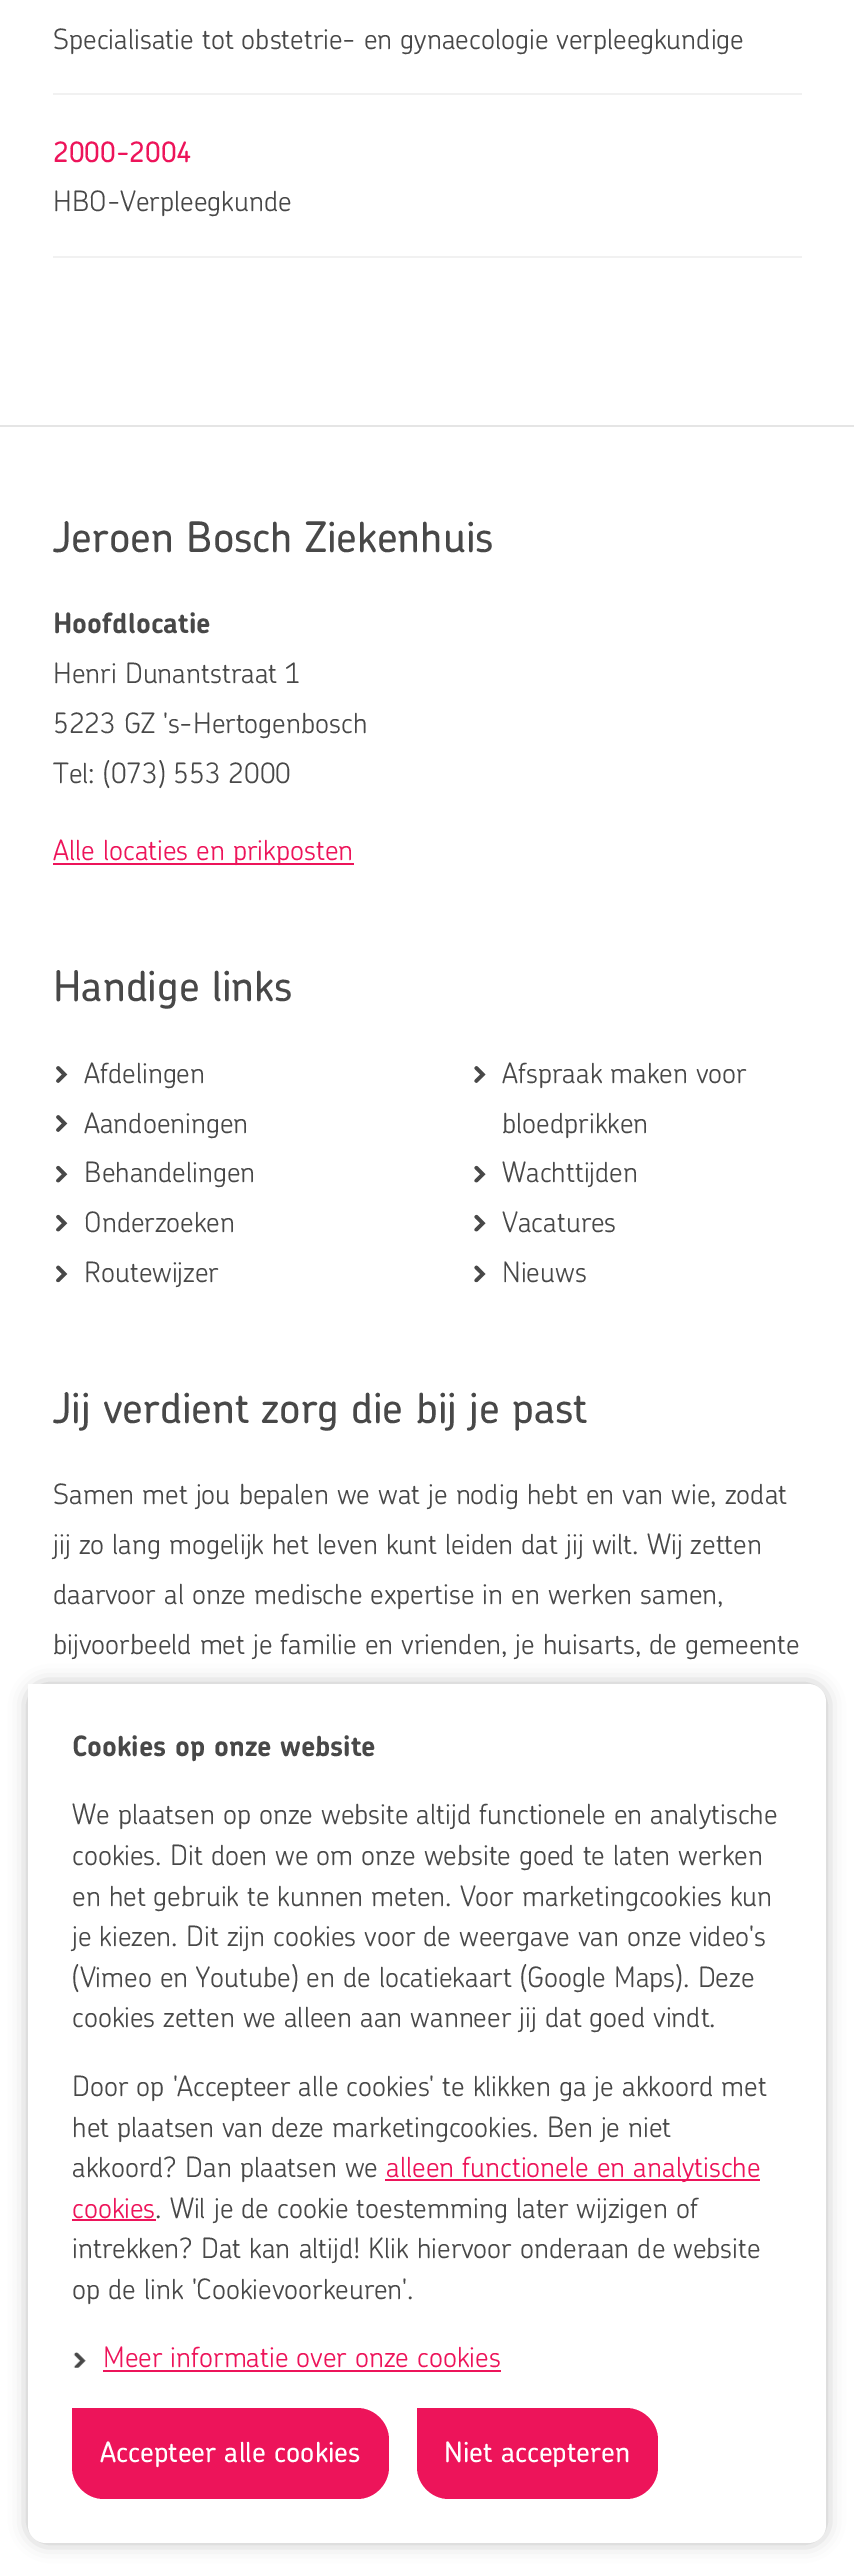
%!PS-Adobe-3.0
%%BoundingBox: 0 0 854 2573
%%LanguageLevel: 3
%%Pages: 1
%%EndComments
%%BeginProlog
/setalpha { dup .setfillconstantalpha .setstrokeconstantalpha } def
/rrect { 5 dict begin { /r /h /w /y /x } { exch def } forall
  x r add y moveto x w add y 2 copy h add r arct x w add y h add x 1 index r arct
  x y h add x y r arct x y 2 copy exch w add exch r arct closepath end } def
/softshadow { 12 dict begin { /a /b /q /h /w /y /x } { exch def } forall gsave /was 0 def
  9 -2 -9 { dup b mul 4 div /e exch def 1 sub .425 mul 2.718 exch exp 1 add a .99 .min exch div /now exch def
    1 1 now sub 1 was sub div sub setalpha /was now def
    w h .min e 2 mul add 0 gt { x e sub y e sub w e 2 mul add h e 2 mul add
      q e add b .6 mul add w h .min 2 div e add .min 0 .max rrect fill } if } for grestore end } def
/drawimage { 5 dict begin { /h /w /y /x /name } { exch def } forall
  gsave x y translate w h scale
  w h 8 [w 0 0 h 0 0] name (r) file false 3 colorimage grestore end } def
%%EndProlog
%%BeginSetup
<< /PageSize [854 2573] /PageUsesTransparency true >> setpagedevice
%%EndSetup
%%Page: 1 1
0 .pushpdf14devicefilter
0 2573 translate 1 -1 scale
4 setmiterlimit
1 setgray
0 0 854 2573 rectfill
0.945 setgray
53 93 749 2 rectfill
53 256 749 2 rectfill
0.898 setgray
0 425 854 2 rectfill
0.929 0.078 0.353 setrgbcolor
53 863 301 2 rectfill
(images/1.raw) 56 1066 12 17 drawimage
(images/2.raw) 474 1066 12 17 drawimage
(images/1.raw) 56 1115 12 17 drawimage
(images/3.raw) 56 1165 12 18 drawimage
(images/4.raw) 474 1165 12 18 drawimage
(images/3.raw) 56 1214 12 18 drawimage
(images/4.raw) 474 1214 12 18 drawimage
(images/5.raw) 56 1265 12 18 drawimage
(images/6.raw) 474 1265 12 18 drawimage
0 setgray
28 1684 798 859 18 9 0.25 softshadow
1 setgray
newpath 28 1684 moveto 808 1684 lineto 818 1684 826 1692 826 1702 curveto 826 2525 lineto 826 2535 818 2543 808 2543 curveto 46 2543 lineto 36 2543 28 2535 28 2525 curveto closepath fill
0.929 0.078 0.353 setrgbcolor
385 2179 375 2 rectfill
72 2219 84 2 rectfill
(images/7.raw) 73 2352 13 16 drawimage
103 2370 398 2 rectfill
newpath 72 2408 moveto 357 2408 lineto 374.5 2408 389 2422.5 389 2440 curveto 389 2467 lineto 389 2484.5 374.5 2499 357 2499 curveto 104 2499 lineto 86.5 2499 72 2484.5 72 2467 curveto closepath fill
newpath 417 2408 moveto 626 2408 lineto 643.5 2408 658 2422.5 658 2440 curveto 658 2467 lineto 658 2484.5 643.5 2499 626 2499 curveto 449 2499 lineto 431.5 2499 417 2484.5 417 2467 curveto closepath fill
/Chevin-Regular [28 0 0 -28 0 0] selectfont
0.282 setgray
53 49 moveto (Specialisatie tot obstetrie- en gynaecologie verpleegkundige) show
/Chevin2-Regular [28 0 0 -28 0 0] selectfont
0.929 0.078 0.353 setrgbcolor
53 162 moveto (2000-2004) show
/Chevin-Regular [28 0 0 -28 0 0] selectfont
0.282 setgray
53 211 moveto (HBO-Verpleegkunde) show
/Chevin2-Regular [42 0 0 -42 0 0] selectfont
53 552 moveto (Jeroen Bosch Ziekenhuis) show
/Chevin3-Regular [28 0 0 -28 0 0] selectfont
53 633 moveto (Hoofdlocatie) show
/Chevin-Regular [28 0 0 -28 0 0] selectfont
53 683 moveto (Henri Dunantstraat 1) show
53 733 moveto (5223 GZ 's-Hertogenbosch) show
53 783 moveto (Tel: \(073\) 553 2000) show
0.929 0.078 0.353 setrgbcolor
53 860 moveto (Alle locaties en prikposten) show
/Chevin2-Regular [42 0 0 -42 0 0] selectfont
0.282 setgray
53 1001 moveto (Handige links) show
/Chevin-Regular [28 0 0 -28 0 0] selectfont
84 1083 moveto (Afdelingen) show
502 1083 moveto (Afspraak maken voor) show
502 1133 moveto (bloedprikken) show
84 1133 moveto (Aandoeningen) show
84 1182 moveto (Behandelingen) show
502 1182 moveto (Wachttijden) show
84 1232 moveto (Onderzoeken) show
502 1232 moveto (Vacatures) show
84 1282 moveto (Routewijzer) show
502 1282 moveto (Nieuws) show
/Chevin2-Regular [42 0 0 -42 0 0] selectfont
53 1423 moveto (Jij verdient zorg die bij je past) show
/Chevin-Regular [28 0 0 -28 0 0] selectfont
53 1504 moveto (Samen met jou bepalen we wat je nodig hebt en van wie, zodat) show
53 1554 moveto (jij zo lang mogelijk het leven kunt leiden dat jij wilt. Wij zetten) show
53 1604 moveto (daarvoor al onze medische expertise in en werken samen,) show
53 1654 moveto (bijvoorbeeld met je familie en vrienden, je huisarts, de gemeente) show
/Chevin3-Regular [28 0 0 -28 0 0] selectfont
72 1756 moveto (Cookies op onze website) show
/Chevin-Regular [28 0 0 -28 0 0] selectfont
72 1824 moveto (We plaatsen op onze website altijd functionele en analytische) show
72 1865 moveto (cookies. Dit doen we om onze website goed te laten werken) show
72 1906 moveto (en het gebruik te kunnen meten. Voor marketingcookies kun) show
72 1946 moveto (je kiezen. Dit zijn cookies voor de weergave van onze video's) show
72 1987 moveto (\(Vimeo en Youtube\) en de locatiekaart \(Google Maps\). Deze) show
72 2027 moveto (cookies zetten we alleen aan wanneer jij dat goed vindt.) show
72 2096 moveto (Door op 'Accepteer alle cookies' te klikken ga je akkoord met) show
72 2137 moveto (het plaatsen van deze marketingcookies. Ben je niet) show
72 2177 moveto (akkoord? Dan plaatsen we) show
0.929 0.078 0.353 setrgbcolor
386 2177 moveto (alleen functionele en analytische) show
72 2218 moveto (cookies) show
0.282 setgray
155 2218 moveto (. Wil je de cookie toestemming later wijzigen of) show
72 2258 moveto (intrekken? Dat kan altijd! Klik hiervoor onderaan de website) show
72 2299 moveto (op de link 'Cookievoorkeuren'.) show
0.929 0.078 0.353 setrgbcolor
103 2367 moveto (Meer informatie over onze cookies) show
/Chevin2-Regular [28 0 0 -28 0 0] selectfont
1 setgray
100 2462 moveto (Accepteer alle cookies) show
444 2462 moveto (Niet accepteren) show
.poppdf14devicefilter showpage
%%EOF
